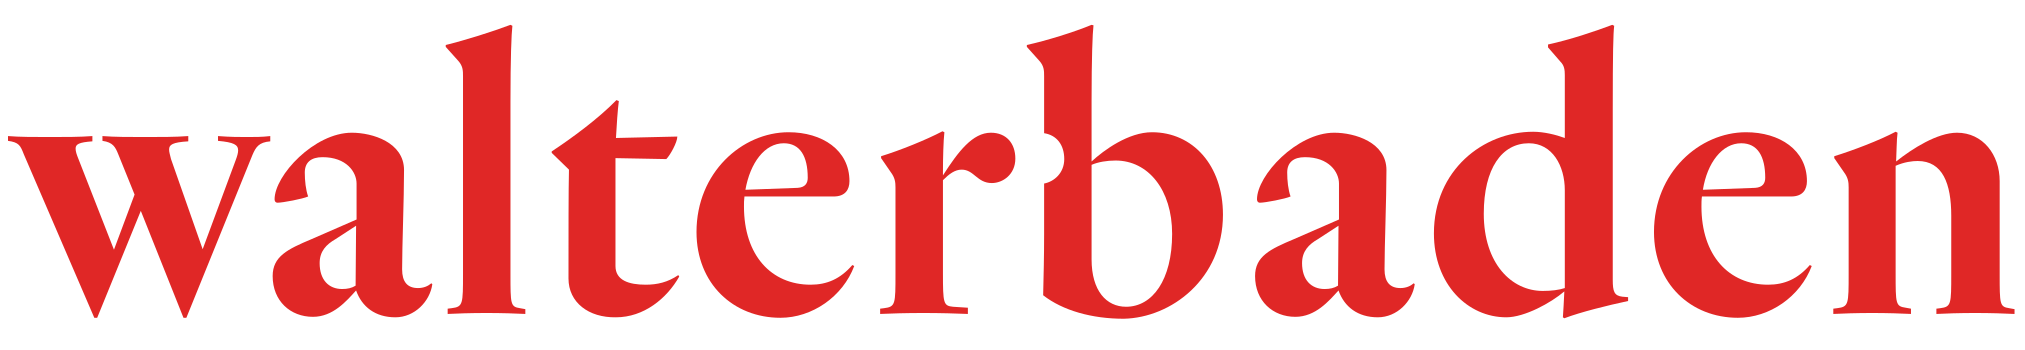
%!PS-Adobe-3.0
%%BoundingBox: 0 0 2025 350
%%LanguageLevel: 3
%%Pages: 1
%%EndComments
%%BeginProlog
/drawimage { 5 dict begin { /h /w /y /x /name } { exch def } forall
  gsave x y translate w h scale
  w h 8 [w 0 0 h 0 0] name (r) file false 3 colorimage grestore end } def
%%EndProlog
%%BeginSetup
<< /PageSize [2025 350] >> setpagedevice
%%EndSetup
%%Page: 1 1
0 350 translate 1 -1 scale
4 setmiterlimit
1 setgray
0 0 2025 350 rectfill
(images/1.raw) 8 24 2007 295 drawimage
showpage
%%EOF
